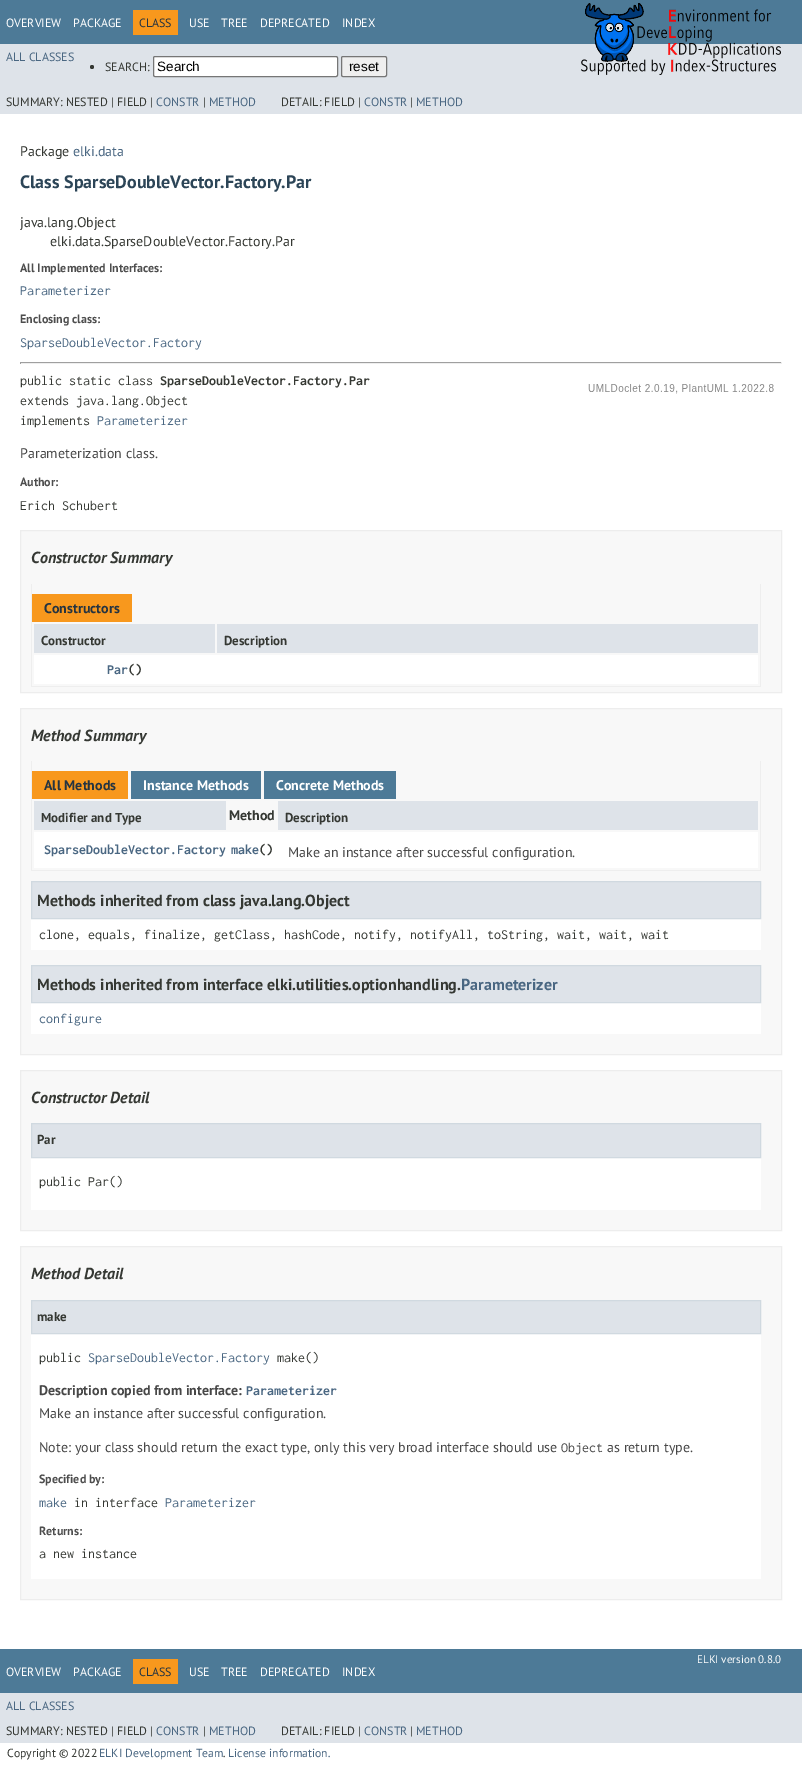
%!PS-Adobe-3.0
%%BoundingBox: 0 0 802 1792
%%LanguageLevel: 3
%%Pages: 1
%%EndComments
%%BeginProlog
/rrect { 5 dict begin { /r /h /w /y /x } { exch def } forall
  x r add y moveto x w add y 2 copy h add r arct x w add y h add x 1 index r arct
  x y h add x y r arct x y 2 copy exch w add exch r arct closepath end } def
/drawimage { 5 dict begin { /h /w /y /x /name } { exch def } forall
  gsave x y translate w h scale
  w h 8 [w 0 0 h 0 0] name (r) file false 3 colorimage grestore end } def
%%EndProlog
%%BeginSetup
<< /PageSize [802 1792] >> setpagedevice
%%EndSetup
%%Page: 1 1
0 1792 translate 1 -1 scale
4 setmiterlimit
1 setgray
0 0 802 1792 rectfill
0.302 0.478 0.592 setrgbcolor
0 0 802 44 rectfill
0.973 0.596 0.114 setrgbcolor
133 10 45 25 rectfill
0.871 0.89 0.914 setrgbcolor
0 44 802 70 rectfill
(images/1.raw) 581 3 200 72 drawimage
0.208 0.22 0.2 setrgbcolor
newpath 92 67 2 0 360 arc closepath fill
1 setgray
153.5 56.5 184 20 1.5 rrect gsave fill grestore
0.463 setgray
stroke
0.937 setgray
341.5 56.5 45 20 1.5 rrect gsave fill grestore
0.463 setgray
stroke
0.624 setgray
20 362 762 1 rectfill
0.933 setgray
781 362 1 2 rectfill
20 363 762 1 rectfill
0.624 setgray
20 362 1 2 rectfill
(images/2.raw) 588 384 186 10 drawimage
0.973 setgray
newpath 20.5 530.5 moveto 781.5 530.5 lineto 781.5 692.5 lineto 20.5 692.5 lineto closepath gsave fill grestore
0.929 setgray
stroke
0.933 setgray
760 584 1 103 rectfill
31 686 730 1 rectfill
31 584 1 103 rectfill
0.973 0.596 0.114 setrgbcolor
32 594 100 28 rectfill
0.871 0.89 0.914 setrgbcolor
34 624 181 29 rectfill
217 624 541 29 rectfill
1 setgray
34 655 724 29 rectfill
0.973 setgray
newpath 20.5 708.5 moveto 781.5 708.5 lineto 781.5 1054.5 lineto 20.5 1054.5 lineto closepath gsave fill grestore
0.929 setgray
stroke
0.933 setgray
760 761 1 110 rectfill
31 870 730 1 rectfill
31 761 1 110 rectfill
0.973 0.596 0.114 setrgbcolor
32 771 96 28 rectfill
0.302 0.478 0.592 setrgbcolor
131 771 130 28 rectfill
264 771 132 28 rectfill
0.871 0.89 0.914 setrgbcolor
34 801 192 29 rectfill
278 801 480 29 rectfill
1 setgray
34 832 724 36 rectfill
31 919 730 31 rectfill
0.871 0.89 0.914 setrgbcolor
newpath 31.5 881.5 moveto 760.5 881.5 lineto 760.5 918.5 lineto 31.5 918.5 lineto closepath gsave fill grestore
0.816 0.851 0.878 setrgbcolor
stroke
1 setgray
31 1003 730 31 rectfill
0.871 0.89 0.914 setrgbcolor
newpath 31.5 965.5 moveto 760.5 965.5 lineto 760.5 1002.5 lineto 31.5 1002.5 lineto closepath gsave fill grestore
0.816 0.851 0.878 setrgbcolor
stroke
0.973 setgray
newpath 20.5 1070.5 moveto 781.5 1070.5 lineto 781.5 1230.5 lineto 20.5 1230.5 lineto closepath gsave fill grestore
0.929 setgray
stroke
1 setgray
31 1158 730 52 rectfill
0.871 0.89 0.914 setrgbcolor
newpath 31.5 1123.5 moveto 760.5 1123.5 lineto 760.5 1157.5 lineto 31.5 1157.5 lineto closepath gsave fill grestore
0.816 0.851 0.878 setrgbcolor
stroke
0.973 setgray
newpath 20.5 1246.5 moveto 781.5 1246.5 lineto 781.5 1599.5 lineto 20.5 1599.5 lineto closepath gsave fill grestore
0.929 setgray
stroke
1 setgray
31 1334 730 245 rectfill
0.871 0.89 0.914 setrgbcolor
newpath 31.5 1300.5 moveto 760.5 1300.5 lineto 760.5 1333.5 lineto 31.5 1333.5 lineto closepath gsave fill grestore
0.816 0.851 0.878 setrgbcolor
stroke
0.302 0.478 0.592 setrgbcolor
0 1649 802 44 rectfill
0.973 0.596 0.114 setrgbcolor
133 1659 45 25 rectfill
0.871 0.89 0.914 setrgbcolor
0 1693 802 50 rectfill
/PTSans-Regular [12 0 0 -12 0 0] selectfont
1 setgray
6 27 moveto (OVERVIEW) show
73 27 moveto (PACKAGE) show
0.145 0.204 0.255 setrgbcolor
139 27 moveto (CLASS) show
1 setgray
189 27 moveto (USE) show
221 27 moveto (TREE) show
260 27 moveto (DEPRECATED) show
342 27 moveto (INDEX) show
0.29 0.404 0.51 setrgbcolor
6 61 moveto (ALL CLASSES) show
0.208 0.22 0.2 setrgbcolor
105 71 moveto (SEARCH:) show
/LiberationSans-Regular [13.5 0 0 -13.5 0 0] selectfont
0 setgray
157 71 moveto (Search) show
349 71 moveto (reset) show
/PTSans-Regular [12 0 0 -12 0 0] selectfont
0.208 0.22 0.2 setrgbcolor
6 106 moveto (SUMMARY: NESTED | FIELD |) show
0.29 0.404 0.51 setrgbcolor
156 106 moveto (CONSTR) show
0.208 0.22 0.2 setrgbcolor
203 106 moveto (|) show
0.29 0.404 0.51 setrgbcolor
209 106 moveto (METHOD) show
0.208 0.22 0.2 setrgbcolor
281 106 moveto (DETAIL: FIELD |) show
0.29 0.404 0.51 setrgbcolor
364 106 moveto (CONSTR) show
0.208 0.22 0.2 setrgbcolor
410 106 moveto (|) show
0.29 0.404 0.51 setrgbcolor
416 106 moveto (METHOD) show
/PTSans-Regular [14 0 0 -14 0 0] selectfont
0.208 0.22 0.2 setrgbcolor
20 156 moveto (Package) show
0.29 0.404 0.51 setrgbcolor
73 156 moveto (elki.data) show
/PTSans-Bold [18 0 0 -18 0 0] selectfont
0.173 0.271 0.341 setrgbcolor
20 188 moveto (Class SparseDoubleVector.Factory.Par) show
/PTSans-Regular [14 0 0 -14 0 0] selectfont
0.208 0.22 0.2 setrgbcolor
20 227 moveto (java.lang.Object) show
50 246 moveto (elki.data.SparseDoubleVector.Factory.Par) show
/PTSans-Bold [12 0 0 -12 0 0] selectfont
0.306 setgray
20 272 moveto (All Implemented Interfaces:) show
/Inconsolata-Regular [14 0 0 -14 0 0] selectfont
0.29 0.404 0.51 setrgbcolor
20 295 moveto (Parameterizer) show
/PTSans-Bold [12 0 0 -12 0 0] selectfont
0.306 setgray
20 323 moveto (Enclosing class:) show
/Inconsolata-Regular [14 0 0 -14 0 0] selectfont
0.29 0.404 0.51 setrgbcolor
20 347 moveto (SparseDoubleVector.Factory) show
0.208 0.22 0.2 setrgbcolor
20 385 moveto (public static class) show
/Inconsolata-Bold [14 0 0 -14 0 0] selectfont
160 385 moveto (SparseDoubleVector.Factory.Par) show
/Inconsolata-Regular [14 0 0 -14 0 0] selectfont
20 405 moveto (extends java.lang.Object) show
20 425 moveto (implements) show
0.29 0.404 0.51 setrgbcolor
97 425 moveto (Parameterizer) show
/PTSans-Regular [14 0 0 -14 0 0] selectfont
0.278 setgray
20 458 moveto (Parameterization class.) show
/PTSans-Bold [12 0 0 -12 0 0] selectfont
0.306 setgray
20 486 moveto (Author:) show
/Inconsolata-Regular [14 0 0 -14 0 0] selectfont
0.208 0.22 0.2 setrgbcolor
20 510 moveto (Erich Schubert) show
/PTSans-BoldItalic [16 0 0 -16 0 0] selectfont
31 563 moveto (Constructor Summary) show
/PTSans-Bold [14 0 0 -14 0 0] selectfont
0.145 0.204 0.255 setrgbcolor
44 613 moveto (Constructors) show
/PTSans-Bold [13 0 0 -13 0 0] selectfont
0.208 0.22 0.2 setrgbcolor
41 645 moveto (Constructor) show
224 645 moveto (Description) show
/Inconsolata-Bold [14 0 0 -14 0 0] selectfont
0.29 0.404 0.51 setrgbcolor
107 674 moveto (Par) show
0.208 0.22 0.2 setrgbcolor
128 674 moveto (\(\)) show
/PTSans-BoldItalic [16 0 0 -16 0 0] selectfont
31 741 moveto (Method Summary) show
/PTSans-Bold [14 0 0 -14 0 0] selectfont
0.145 0.204 0.255 setrgbcolor
44 790 moveto (All Methods) show
1 setgray
143 790 moveto (Instance Methods) show
276 790 moveto (Concrete Methods) show
/PTSans-Bold [13 0 0 -13 0 0] selectfont
0.208 0.22 0.2 setrgbcolor
41 822 moveto (Modifier and Type) show
/PTSans-Bold [14 0 0 -14 0 0] selectfont
229 820 moveto (Method) show
/PTSans-Bold [13 0 0 -13 0 0] selectfont
285 822 moveto (Description) show
/Inconsolata-Bold [14 0 0 -14 0 0] selectfont
0.29 0.404 0.51 setrgbcolor
44 854 moveto (SparseDoubleVector.Factory) show
231 854 moveto (make) show
0.208 0.22 0.2 setrgbcolor
259 854 moveto (\(\)) show
/PTSans-Regular [14 0 0 -14 0 0] selectfont
0.278 setgray
288 857 moveto (Make an instance after successful configuration.) show
/PTSans-Bold [16 0 0 -16 0 0] selectfont
0.208 0.22 0.2 setrgbcolor
37 906 moveto (Methods inherited from class java.lang.Object) show
/Inconsolata-Regular [14 0 0 -14 0 0] selectfont
39 939 moveto (clone, equals, finalize, getClass, hashCode, notify, notifyAll, toString, wait, wait, wait) show
/PTSans-Bold [16 0 0 -16 0 0] selectfont
37 990 moveto (Methods inherited from interface elki.utilities.optionhandling.) show
0.29 0.404 0.51 setrgbcolor
461 990 moveto (Parameterizer) show
/Inconsolata-Regular [14 0 0 -14 0 0] selectfont
39 1023 moveto (configure) show
/PTSans-BoldItalic [16 0 0 -16 0 0] selectfont
0.208 0.22 0.2 setrgbcolor
31 1103 moveto (Constructor Detail) show
/PTSans-Bold [13 0 0 -13 0 0] selectfont
37 1144 moveto (Par) show
/Inconsolata-Regular [14 0 0 -14 0 0] selectfont
39 1186 moveto (public Par\(\)) show
/PTSans-BoldItalic [16 0 0 -16 0 0] selectfont
31 1279 moveto (Method Detail) show
/PTSans-Bold [13 0 0 -13 0 0] selectfont
37 1321 moveto (make) show
/Inconsolata-Regular [14 0 0 -14 0 0] selectfont
39 1362 moveto (public) show
0.29 0.404 0.51 setrgbcolor
88 1362 moveto (SparseDoubleVector.Factory) show
0.208 0.22 0.2 setrgbcolor
277 1362 moveto (make\(\)) show
/PTSans-Bold [14 0 0 -14 0 0] selectfont
0.278 setgray
39 1395 moveto (Description copied from interface:) show
/Inconsolata-Bold [14 0 0 -14 0 0] selectfont
0.29 0.404 0.51 setrgbcolor
246 1395 moveto (Parameterizer) show
/PTSans-Regular [14 0 0 -14 0 0] selectfont
0.278 setgray
39 1418 moveto (Make an instance after successful configuration.) show
39 1452 moveto (Note: your class should return the exact type, only this very broad interface should use) show
/Inconsolata-Regular [14 0 0 -14 0 0] selectfont
561 1452 moveto (Object) show
/PTSans-Regular [14 0 0 -14 0 0] selectfont
607 1452 moveto (as return type.) show
/PTSans-Bold [12 0 0 -12 0 0] selectfont
0.306 setgray
39 1483 moveto (Specified by:) show
/Inconsolata-Regular [14 0 0 -14 0 0] selectfont
0.29 0.404 0.51 setrgbcolor
39 1507 moveto (make) show
0.208 0.22 0.2 setrgbcolor
74 1507 moveto (in interface) show
0.29 0.404 0.51 setrgbcolor
165 1507 moveto (Parameterizer) show
/PTSans-Bold [12 0 0 -12 0 0] selectfont
0.306 setgray
39 1535 moveto (Returns:) show
/Inconsolata-Regular [14 0 0 -14 0 0] selectfont
0.208 0.22 0.2 setrgbcolor
39 1558 moveto (a new instance) show
/PTSans-Regular [11 0 0 -11 0 0] selectfont
1 setgray
697 1663 moveto (ELKI version 0.8.0) show
/PTSans-Regular [12 0 0 -12 0 0] selectfont
6 1676 moveto (OVERVIEW) show
73 1676 moveto (PACKAGE) show
0.145 0.204 0.255 setrgbcolor
139 1676 moveto (CLASS) show
1 setgray
189 1676 moveto (USE) show
221 1676 moveto (TREE) show
260 1676 moveto (DEPRECATED) show
342 1676 moveto (INDEX) show
0.29 0.404 0.51 setrgbcolor
6 1710 moveto (ALL CLASSES) show
0.208 0.22 0.2 setrgbcolor
6 1735 moveto (SUMMARY: NESTED | FIELD |) show
0.29 0.404 0.51 setrgbcolor
156 1735 moveto (CONSTR) show
0.208 0.22 0.2 setrgbcolor
203 1735 moveto (|) show
0.29 0.404 0.51 setrgbcolor
209 1735 moveto (METHOD) show
0.208 0.22 0.2 setrgbcolor
281 1735 moveto (DETAIL: FIELD |) show
0.29 0.404 0.51 setrgbcolor
364 1735 moveto (CONSTR) show
0.208 0.22 0.2 setrgbcolor
410 1735 moveto (|) show
0.29 0.404 0.51 setrgbcolor
416 1735 moveto (METHOD) show
/PTSans-Regular [11.75 0 0 -11.75 0 0] selectfont
0.208 0.22 0.2 setrgbcolor
7 1757 moveto (Copyright © 2022) show
0.29 0.404 0.51 setrgbcolor
99 1757 moveto (ELKI Development Team) show
0.208 0.22 0.2 setrgbcolor
223 1757 moveto (.) show
0.29 0.404 0.51 setrgbcolor
228 1757 moveto (License information.) show
showpage
%%EOF
